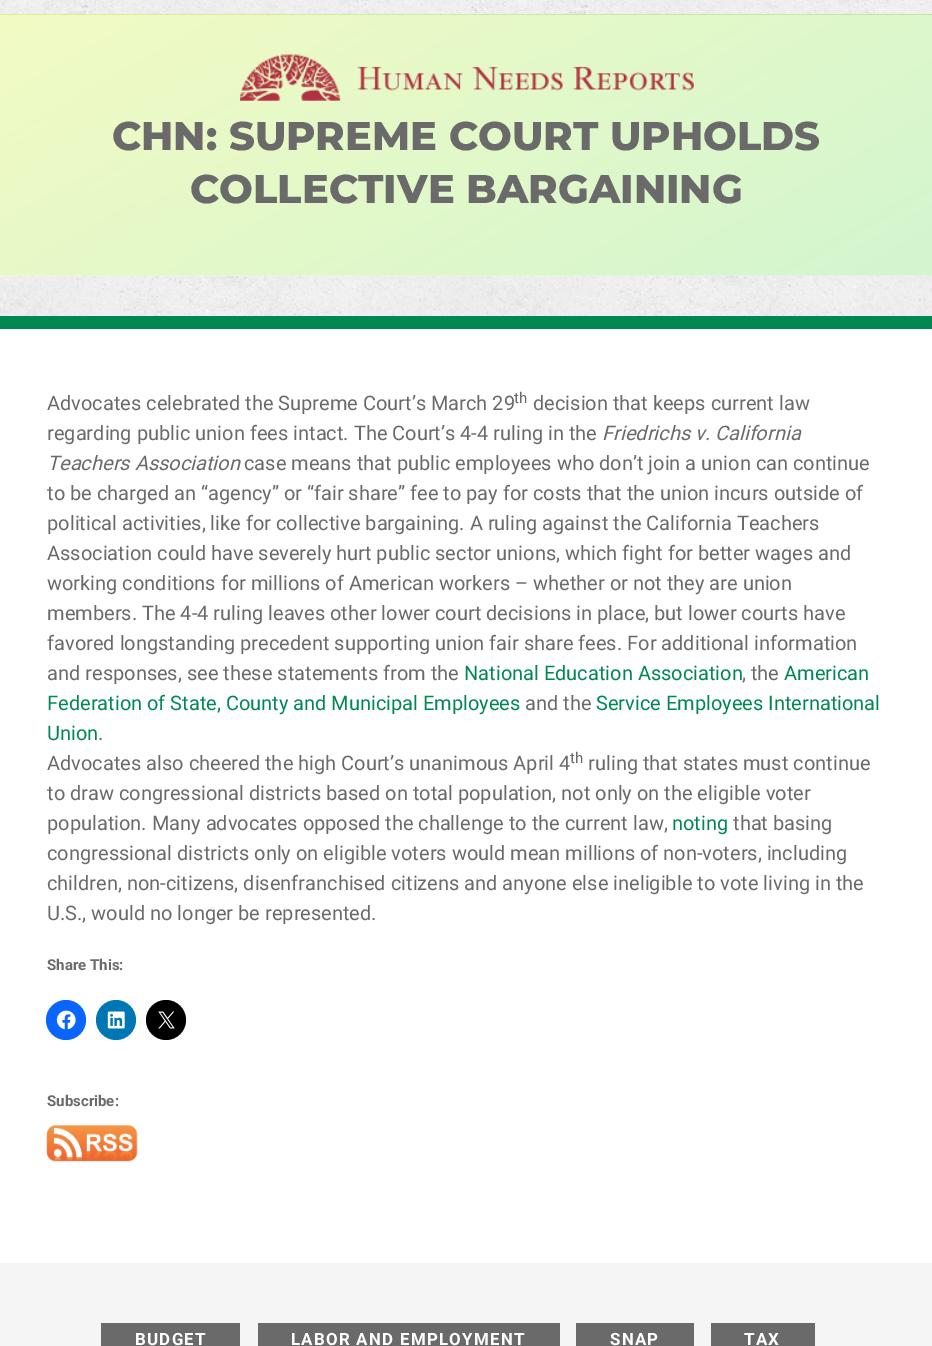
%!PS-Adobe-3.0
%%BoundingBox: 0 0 932 1346
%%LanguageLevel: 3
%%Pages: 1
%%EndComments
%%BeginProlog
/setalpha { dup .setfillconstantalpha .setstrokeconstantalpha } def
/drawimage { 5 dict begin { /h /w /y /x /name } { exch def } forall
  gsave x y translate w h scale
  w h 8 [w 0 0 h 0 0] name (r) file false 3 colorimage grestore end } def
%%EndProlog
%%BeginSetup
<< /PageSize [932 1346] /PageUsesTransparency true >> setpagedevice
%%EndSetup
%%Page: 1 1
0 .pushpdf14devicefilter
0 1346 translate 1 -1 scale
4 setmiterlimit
1 setgray
0 0 932 1346 rectfill
(images/1.raw) 0 0 932 316 drawimage
0 0.529 0.322 setrgbcolor
0 316 932 13 rectfill
(images/2.raw) 0 14 932 262 drawimage
0.7 setalpha
1 setgray
0 15 932 261 rectfill
1 setalpha
(images/3.raw) 240 54 454 47 drawimage
0.031 0.4 1 setrgbcolor
newpath 66 1020 20 0 360 arc closepath fill
(images/4.raw) 56 1010 20 20 drawimage
0 0.467 0.71 setrgbcolor
newpath 116 1020 20 0 360 arc closepath fill
(images/5.raw) 107 1011 18 18 drawimage
0 setgray
newpath 166 1020 20 0 360 arc closepath fill
(images/6.raw) 158 1011 17 18 drawimage
(images/7.raw) 46 1125 92 37 drawimage
0.961 setgray
0 1263 932 83 rectfill
0.42 0.416 0.416 setrgbcolor
101 1323 139 23 rectfill
258 1323 302 23 rectfill
576 1323 118 23 rectfill
711 1323 104 23 rectfill
/Montserrat-ExtraBold [40 0 0 -40 0 0] selectfont
112 150 moveto (CHN: SUPREME COURT UPHOLDS) show
190 203 moveto (COLLECTIVE BARGAINING) show
/Roboto-Regular [20 0 0 -20 0 0] selectfont
47 410 moveto (Advocates celebrated the Supreme Court’s March 29) show
/Roboto-Regular [15 0 0 -15 0 0] selectfont
514 403 moveto (th) show
/Roboto-Regular [20 0 0 -20 0 0] selectfont
533 410 moveto (decision that keeps current law) show
47 440 moveto (regarding public union fees intact. The Court’s 4-4 ruling in the) show
/Roboto-Italic [20 0 0 -20 0 0] selectfont
602 440 moveto (Friedrichs v. California) show
47 470 moveto (Teachers Association) show
/Roboto-Regular [20 0 0 -20 0 0] selectfont
244 470 moveto (case means that public employees who don’t join a union can continue) show
47 500 moveto (to be charged an “agency” or “fair share” fee to pay for costs that the union incurs outside of) show
47 530 moveto (political activities, like for collective bargaining. A ruling against the California Teachers) show
47 560 moveto (Association could have severely hurt public sector unions, which fight for better wages and) show
47 590 moveto (working conditions for millions of American workers – whether or not they are union) show
47 620 moveto (members. The 4-4 ruling leaves other lower court decisions in place, but lower courts have) show
47 650 moveto (favored longstanding precedent supporting union fair share fees. For additional information) show
47 680 moveto (and responses, see these statements from the) show
0 0.529 0.322 setrgbcolor
464 680 moveto (National Education Association) show
0.42 0.416 0.416 setrgbcolor
742 680 moveto (, the) show
0 0.529 0.322 setrgbcolor
784 680 moveto (American) show
47 710 moveto (Federation of State, County and Municipal Employees) show
0.42 0.416 0.416 setrgbcolor
525 710 moveto (and the) show
0 0.529 0.322 setrgbcolor
596 710 moveto (Service Employees International) show
47 740 moveto (Union) show
0.42 0.416 0.416 setrgbcolor
98 740 moveto (.) show
47 770 moveto (Advocates also cheered the high Court’s unanimous April 4) show
/Roboto-Regular [15 0 0 -15 0 0] selectfont
570 763 moveto (th) show
/Roboto-Regular [20 0 0 -20 0 0] selectfont
588 770 moveto (ruling that states must continue) show
47 800 moveto (to draw congressional districts based on total population, not only on the eligible voter) show
47 830 moveto (population. Many advocates opposed the challenge to the current law,) show
0 0.529 0.322 setrgbcolor
672 830 moveto (noting) show
0.42 0.416 0.416 setrgbcolor
733 830 moveto (that basing) show
47 860 moveto (congressional districts only on eligible voters would mean millions of non-voters, including) show
47 890 moveto (children, non-citizens, disenfranchised citizens and anyone else ineligible to vote living in the) show
47 920 moveto (U.S., would no longer be represented.) show
/Roboto-Bold [15 0 0 -15 0 0] selectfont
47 970 moveto (Share This:) show
47 1106 moveto (Subscribe:) show
/Roboto-Bold [16.9 0 0 -16.9 0 0] selectfont
1 setgray
135 1345 moveto 1.25 0 (BUDGET) ashow
291 1345 moveto 1.25 0 (LABOR AND EMPLOYMENT) ashow
610 1345 moveto 1.25 0 (SNAP) ashow
744 1345 moveto 1.25 0 (TAX) ashow
.poppdf14devicefilter showpage
%%EOF
